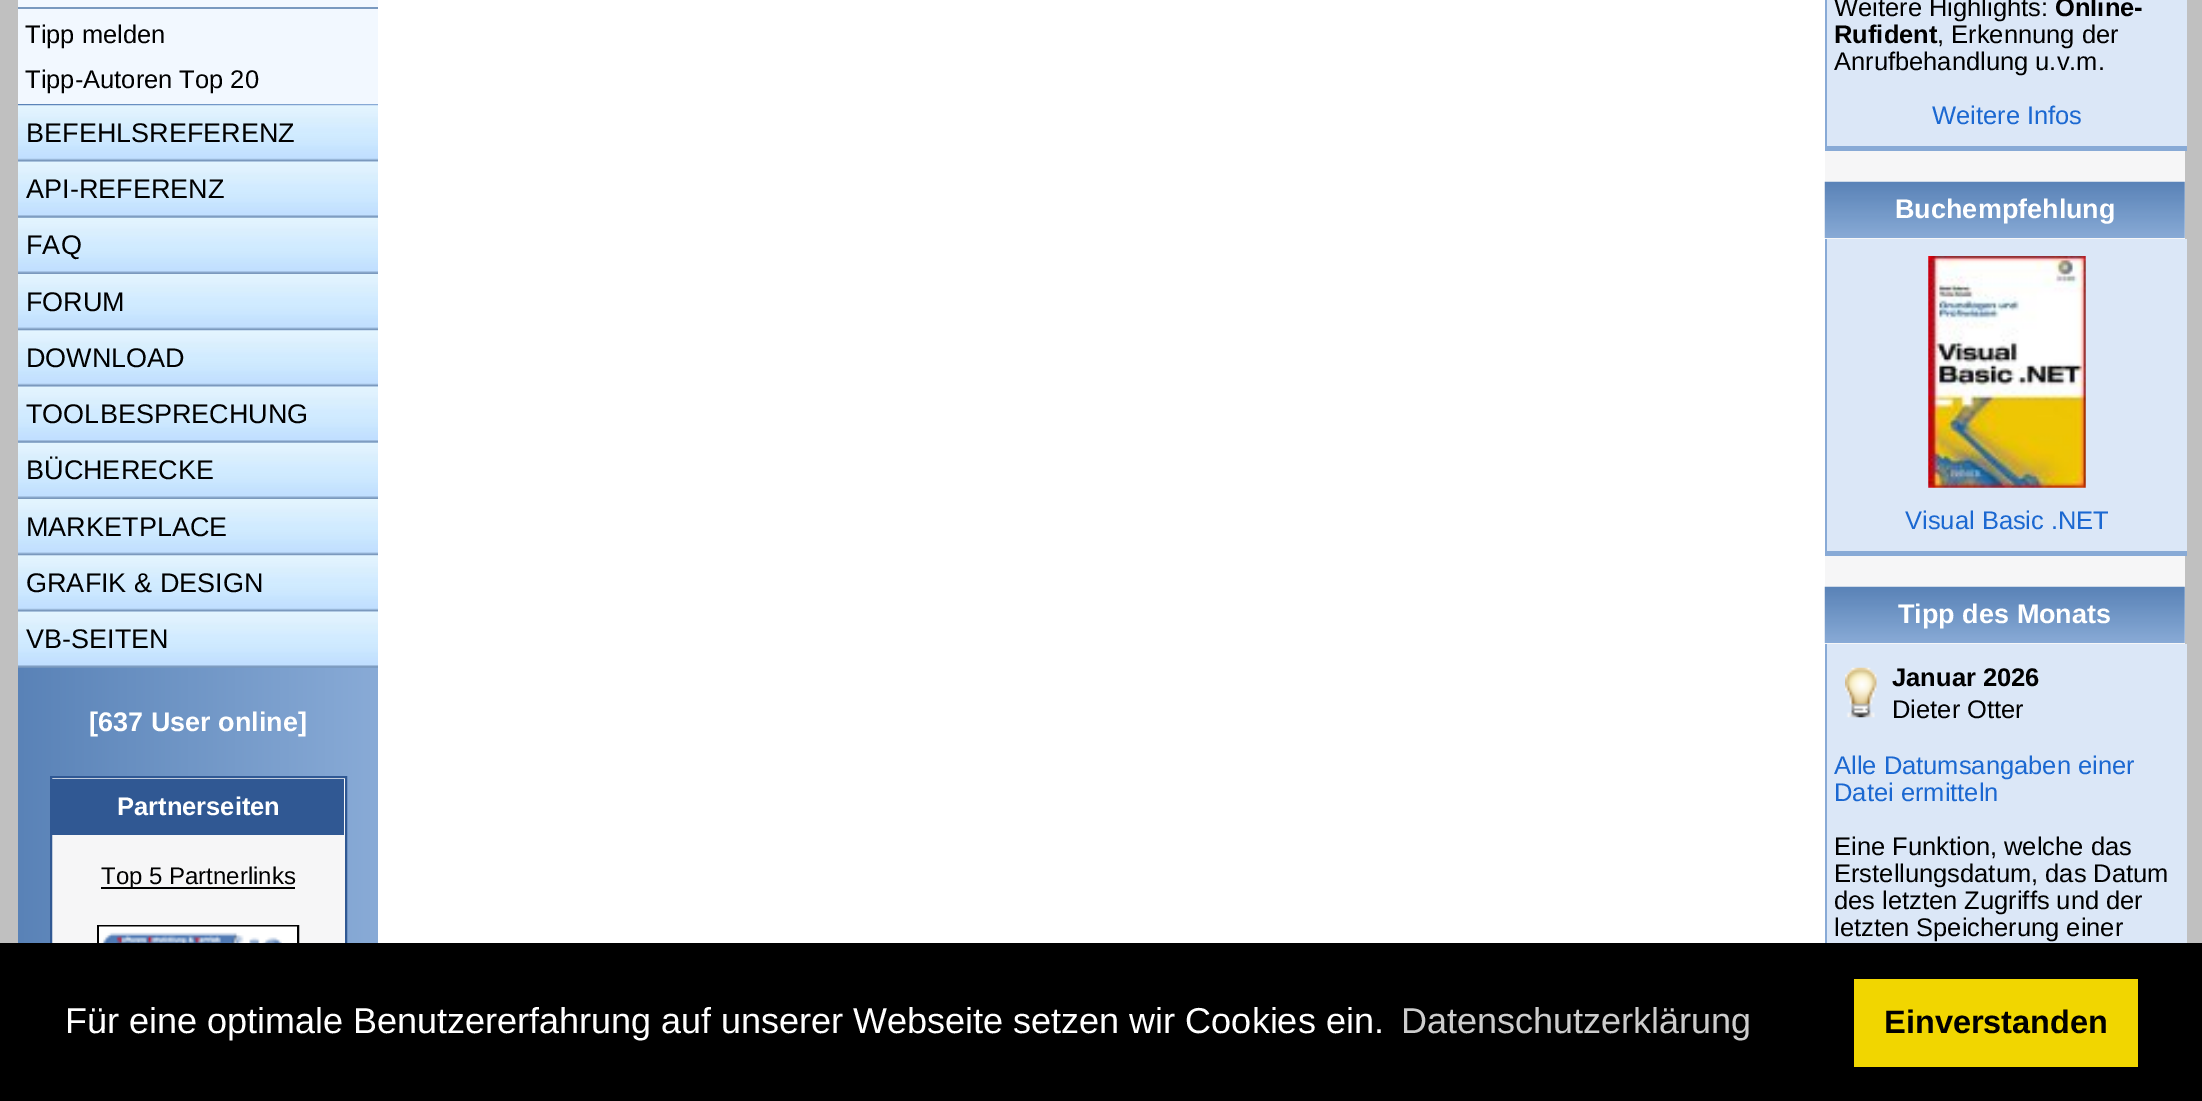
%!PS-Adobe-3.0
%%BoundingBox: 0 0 2202 1101
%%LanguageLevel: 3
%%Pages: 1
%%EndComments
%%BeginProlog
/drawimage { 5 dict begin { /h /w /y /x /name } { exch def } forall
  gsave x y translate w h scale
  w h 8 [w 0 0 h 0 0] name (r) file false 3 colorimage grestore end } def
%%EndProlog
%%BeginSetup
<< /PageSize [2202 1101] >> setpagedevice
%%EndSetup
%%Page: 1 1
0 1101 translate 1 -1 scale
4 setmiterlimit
0.753 setgray
0 0 2202 1101 rectfill
1 setgray
378 0 1447 943 rectfill
(images/1.raw) 18 104 360 839 drawimage
0.949 0.973 1 setrgbcolor
18 0 360 104 rectfill
0.475 0.6 0.749 setrgbcolor
18 7 360 2 rectfill
(images/2.raw) 18 105 360 57 drawimage
(images/3.raw) 18 161 360 57 drawimage
(images/4.raw) 18 217 360 57 drawimage
(images/5.raw) 18 274 360 57 drawimage
(images/6.raw) 18 330 360 57 drawimage
(images/3.raw) 18 386 360 57 drawimage
(images/4.raw) 18 442 360 57 drawimage
(images/5.raw) 18 499 360 57 drawimage
(images/6.raw) 18 555 360 57 drawimage
(images/3.raw) 18 611 360 57 drawimage
0.965 0.965 0.969 setrgbcolor
52 778 293 165 rectfill
0.188 0.345 0.576 setrgbcolor
2 setlinewidth
51 777 295 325 rectstroke
52 779 292 56 rectfill
0 setgray
101 887 194 2 rectfill
98 926 200 72 rectstroke
(images/7.raw) 99 926 198 17 drawimage
0.965 0.965 0.969 setrgbcolor
1825 151 360 493 rectfill
0.859 0.906 0.969 setrgbcolor
1827 0 360 146 rectfill
0.533 0.667 0.839 setrgbcolor
1825 146 362 5 rectfill
1825 0 2 151 rectfill
(images/8.raw) 1824 181 361 57 drawimage
0.859 0.906 0.969 setrgbcolor
1827 239 360 312 rectfill
0.533 0.667 0.839 setrgbcolor
1825 551 362 5 rectfill
1825 239 2 317 rectfill
(images/9.raw) 1928 256 158 232 drawimage
(images/8.raw) 1824 586 361 57 drawimage
0.859 0.906 0.969 setrgbcolor
1827 644 360 299 rectfill
0.533 0.667 0.839 setrgbcolor
1825 644 2 299 rectfill
(images/10.raw) 1845 667 32 51 drawimage
0 setgray
0 943 2202 158 rectfill
0.945 0.839 0 setrgbcolor
1854 979 284 88 rectfill
/LiberationSans-Regular [25.5 0 0 -25.5 0 0] selectfont
0 setgray
25 43 moveto (Tipp melden) show
25 88 moveto (Tipp-Autoren Top 20) show
/LiberationSans-Regular [27 0 0 -27 0 0] selectfont
26 142 moveto (BEFEHLSREFERENZ) show
26 198 moveto (API-REFERENZ) show
26 254 moveto (FAQ) show
26 311 moveto (FORUM) show
26 367 moveto (DOWNLOAD) show
26 423 moveto (TOOLBESPRECHUNG) show
26 479 moveto (BÜCHERECKE) show
26 536 moveto (MARKETPLACE) show
26 592 moveto (GRAFIK & DESIGN) show
26 648 moveto (VB-SEITEN) show
/LiberationSans-Bold [27 0 0 -27 0 0] selectfont
1 setgray
89 731 moveto ([637 User online]) show
/LiberationSans-Bold [25.5 0 0 -25.5 0 0] selectfont
117 815 moveto (Partnerseiten) show
/LiberationSans-Regular [24 0 0 -24 0 0] selectfont
0 setgray
101 884 moveto (Top 5 Partnerlinks) show
/LiberationSans-Regular [25.5 0 0 -25.5 0 0] selectfont
1834 16 moveto (Weitere Highlights:) show
/LiberationSans-Bold [25.5 0 0 -25.5 0 0] selectfont
2055 16 moveto (Online-) show
1834 43 moveto (Rufident) show
/LiberationSans-Regular [25.5 0 0 -25.5 0 0] selectfont
1937 43 moveto (, Erkennung der) show
1834 70 moveto (Anrufbehandlung u.v.m.) show
0.106 0.408 0.82 setrgbcolor
1932 124 moveto (Weitere Infos) show
/LiberationSans-Bold [27 0 0 -27 0 0] selectfont
1 setgray
1895 218 moveto (Buchempfehlung) show
/LiberationSans-Regular [25.5 0 0 -25.5 0 0] selectfont
0.106 0.408 0.82 setrgbcolor
1905 529 moveto (Visual Basic .NET) show
/LiberationSans-Bold [27 0 0 -27 0 0] selectfont
1 setgray
1898 623 moveto (Tipp des Monats) show
/LiberationSans-Bold [25.5 0 0 -25.5 0 0] selectfont
0 setgray
1892 686 moveto (Januar 2026) show
/LiberationSans-Regular [25.5 0 0 -25.5 0 0] selectfont
1892 718 moveto (Dieter Otter) show
0.106 0.408 0.82 setrgbcolor
1834 774 moveto (Alle Datumsangaben einer) show
1834 801 moveto (Datei ermitteln) show
0 setgray
1834 855 moveto (Eine Funktion, welche das) show
1834 882 moveto (Erstellungsdatum, das Datum) show
1834 909 moveto (des letzten Zugriffs und der) show
1834 936 moveto (letzten Speicherung einer) show
/LiberationSans-Regular [36 0 0 -36 0 0] selectfont
1 setgray
65 1033 moveto (Für eine optimale Benutzererfahrung auf unserer Webseite setzen wir Cookies ein.) show
0.8 setgray
1401 1033 moveto (Datenschutzerklärung) show
/LiberationSans-Bold [32.5 0 0 -32.5 0 0] selectfont
0 setgray
1884 1033 moveto (Einverstanden) show
showpage
%%EOF
